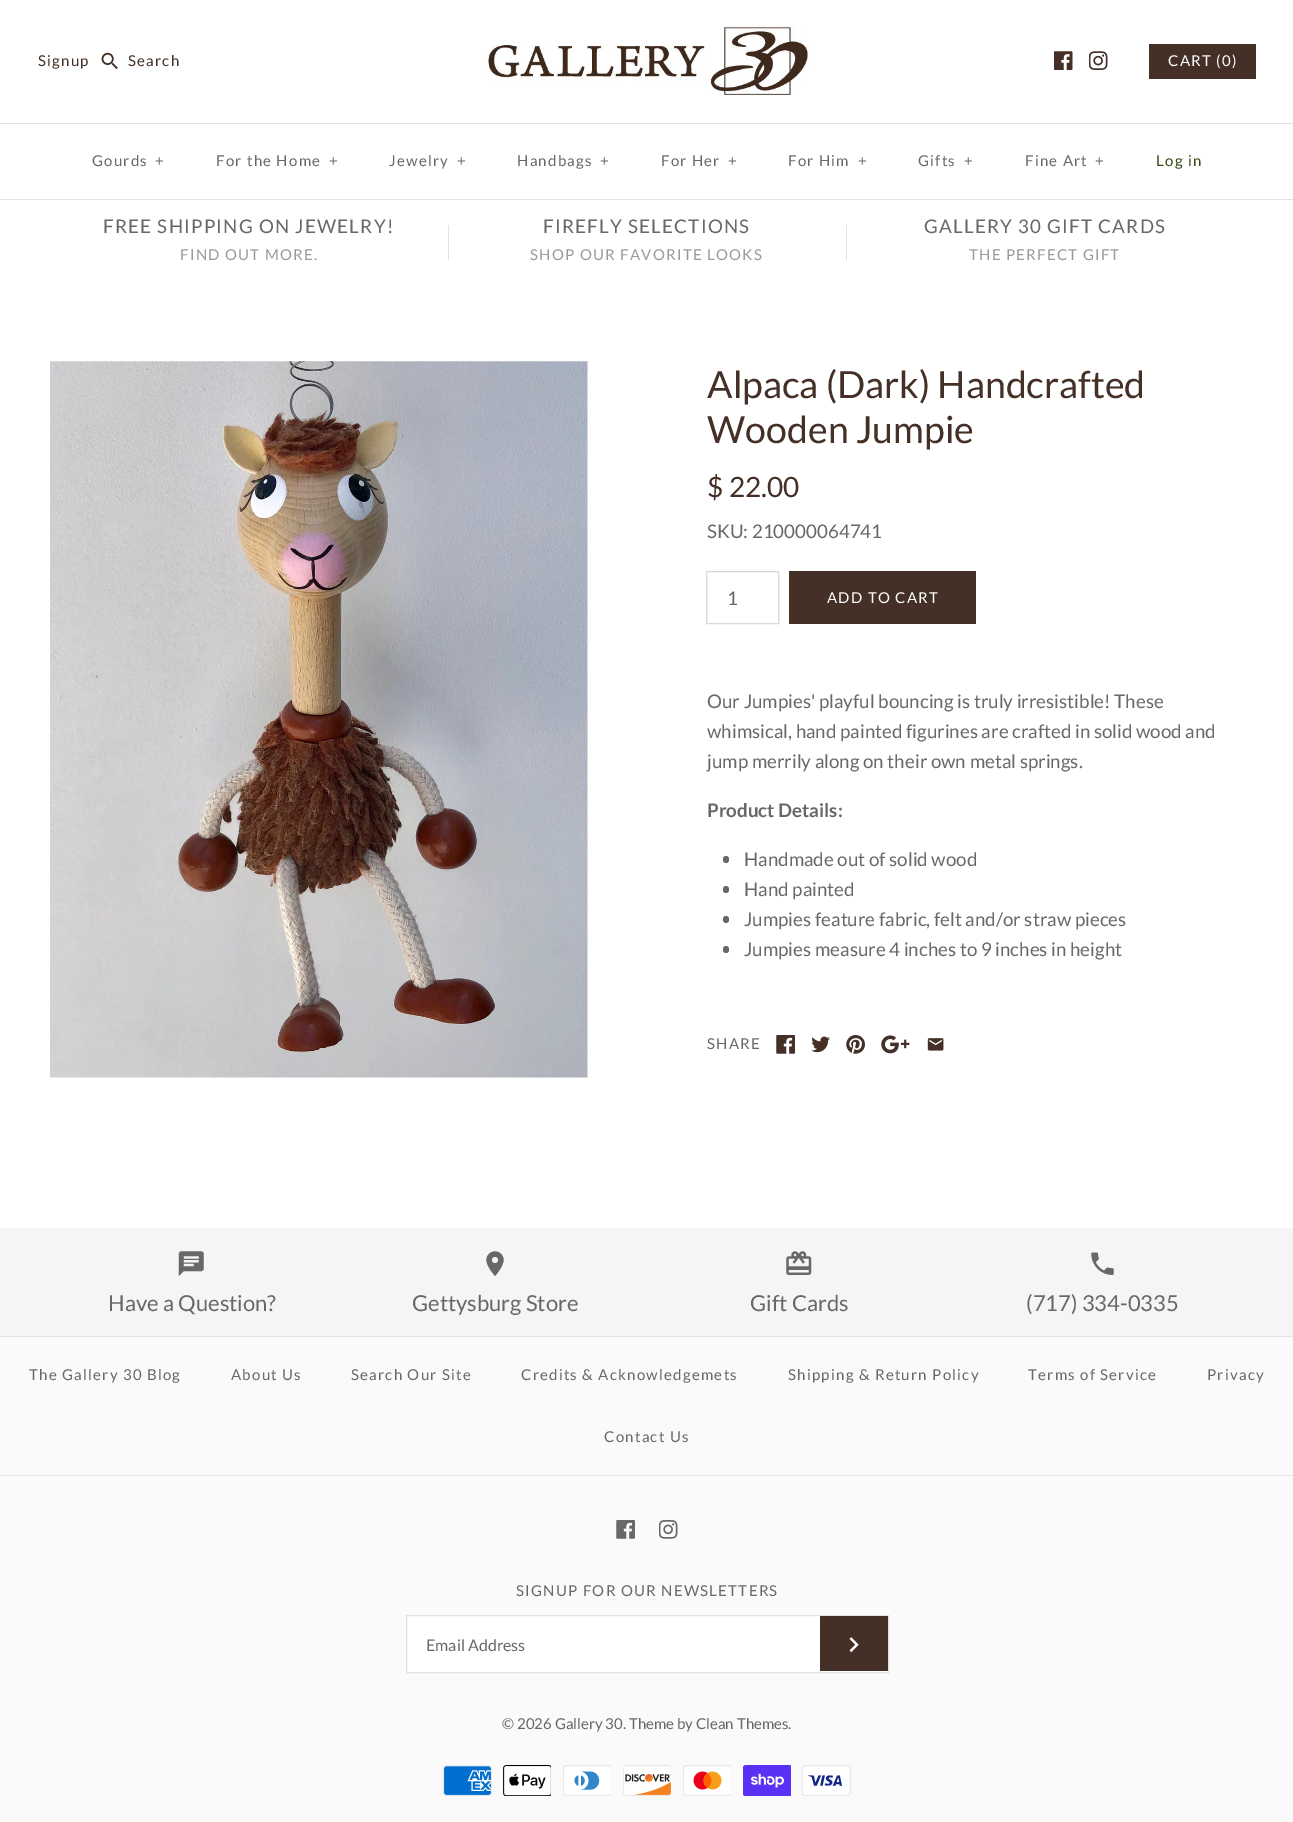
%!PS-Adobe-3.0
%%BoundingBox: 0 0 1293 1822
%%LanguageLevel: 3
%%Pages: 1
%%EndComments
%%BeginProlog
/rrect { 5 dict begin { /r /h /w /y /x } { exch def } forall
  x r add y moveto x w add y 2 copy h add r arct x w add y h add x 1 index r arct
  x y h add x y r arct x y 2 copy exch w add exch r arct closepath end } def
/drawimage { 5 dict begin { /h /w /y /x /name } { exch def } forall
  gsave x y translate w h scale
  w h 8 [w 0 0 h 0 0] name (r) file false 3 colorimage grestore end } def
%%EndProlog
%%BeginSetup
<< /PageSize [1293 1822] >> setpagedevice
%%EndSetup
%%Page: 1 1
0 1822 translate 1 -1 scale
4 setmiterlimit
1 setgray
0 0 1293 1822 rectfill
(images/1.raw) 486 25 324 71 drawimage
(images/2.raw) 101 52 17 18 drawimage
(images/3.raw) 1054 51 19 19 drawimage
(images/4.raw) 1089 51 19 19 drawimage
0.267 0.188 0.149 setrgbcolor
1149 44 107 35 rectfill
0.886 setgray
0 199 1293 1 rectfill
0 123 1293 1 rectfill
448 225 1 35 rectfill
846 225 1 35 rectfill
(images/5.raw) 50 361 538 717 drawimage
0.851 setgray
706.5 571.5 72 52 rectstroke
0.267 0.188 0.149 setrgbcolor
789 571 187 53 rectfill
0.412 0.408 0.408 setrgbcolor
723 856 6 7 3 rrect fill
723 886 6 7 3 rrect fill
723 916 6 7 3 rrect fill
723 946 6 7 3 rrect fill
(images/6.raw) 776 1035 19 19 drawimage
(images/7.raw) 811 1036 19 17 drawimage
(images/8.raw) 846 1035 19 19 drawimage
(images/9.raw) 881 1035 29 19 drawimage
(images/10.raw) 927 1038 17 13 drawimage
0.98 setgray
0 1337 1293 485 rectfill
0.961 setgray
0 1228 1293 108 rectfill
(images/11.raw) 178 1251 26 26 drawimage
(images/12.raw) 486 1251 18 25 drawimage
(images/13.raw) 786 1251 26 24 drawimage
(images/14.raw) 1091 1252 23 23 drawimage
0.886 setgray
0 1336 1293 1 rectfill
0 1475 1293 1 rectfill
(images/15.raw) 616 1520 19 19 drawimage
(images/16.raw) 659 1520 19 19 drawimage
1 setgray
newpath 406.5 1615.5 moveto 888.5 1615.5 lineto 888.5 1672.5 lineto 406.5 1672.5 lineto closepath gsave fill grestore
0.886 setgray
stroke
0.267 0.188 0.149 setrgbcolor
820 1616 68 55 rectfill
(images/17.raw) 849 1637 10 16 drawimage
(images/18.raw) 443 1765 49 31 drawimage
(images/19.raw) 503 1765 48 31 drawimage
(images/20.raw) 563 1765 48 31 drawimage
(images/21.raw) 623 1765 48 31 drawimage
(images/22.raw) 683 1765 48 31 drawimage
(images/23.raw) 743 1765 48 31 drawimage
(images/24.raw) 801 1765 50 31 drawimage
/Lato-Regular [15 0 0 -15 0 0] selectfont
38 66 moveto 1.25 0 (Signup) ashow
128 66 moveto 1.25 0 (Search) ashow
1 setgray
1168 66 moveto 1.25 0 (CART \(0\)) ashow
0.412 0.408 0.408 setrgbcolor
92 166 moveto 1.25 0 (Gourds) ashow
155 166 moveto 1.25 0 (+) ashow
216 166 moveto 1.25 0 (For the Home) ashow
329 166 moveto 1.25 0 (+) ashow
389 166 moveto 1.25 0 (Jewelry) ashow
457 166 moveto 1.25 0 (+) ashow
517 166 moveto 1.25 0 (Handbags) ashow
600 166 moveto 1.25 0 (+) ashow
661 166 moveto 1.25 0 (For Her) ashow
728 166 moveto 1.25 0 (+) ashow
788 166 moveto 1.25 0 (For Him) ashow
858 166 moveto 1.25 0 (+) ashow
918 166 moveto 1.25 0 (Gifts) ashow
964 166 moveto 1.25 0 (+) ashow
1025 166 moveto 1.25 0 (Fine Art) ashow
1095 166 moveto 1.25 0 (+) ashow
0.216 0.286 0.051 setrgbcolor
1156 166 moveto 1.25 0 (Log in) ashow
/Lato-Regular [18.75 0 0 -18.75 0 0] selectfont
0.412 0.408 0.408 setrgbcolor
103 233 moveto 1.25 0 (FREE SHIPPING ON JEWELRY!) ashow
/Lato-Regular [15 0 0 -15 0 0] selectfont
0.608 0.6 0.6 setrgbcolor
180 260 moveto 1.25 0 (FIND OUT MORE.) ashow
/Lato-Regular [18.75 0 0 -18.75 0 0] selectfont
0.412 0.408 0.408 setrgbcolor
543 233 moveto 1.25 0 (FIREFLY SELECTIONS) ashow
/Lato-Regular [15 0 0 -15 0 0] selectfont
0.608 0.6 0.6 setrgbcolor
530 260 moveto 1.25 0 (SHOP OUR FAVORITE LOOKS) ashow
/Lato-Regular [18.75 0 0 -18.75 0 0] selectfont
0.412 0.408 0.408 setrgbcolor
924 233 moveto 1.25 0 (GALLERY 30 GIFT CARDS) ashow
/Lato-Regular [15 0 0 -15 0 0] selectfont
0.608 0.6 0.6 setrgbcolor
969 260 moveto 1.25 0 (THE PERFECT GIFT) ashow
/Lato-Regular [37.5 0 0 -37.5 0 0] selectfont
0.267 0.188 0.149 setrgbcolor
707 398 moveto (Alpaca \(Dark\) Handcrafted) show
707 443 moveto (Wooden Jumpie) show
/Lato-Regular [28 0 0 -28 0 0] selectfont
707 497 moveto ($ 22.00) show
/Lato-Regular [18.75 0 0 -18.75 0 0] selectfont
0.412 0.408 0.408 setrgbcolor
707 538 moveto (SKU: 210000064741) show
727 605 moveto (1) show
/Lato-Regular [15 0 0 -15 0 0] selectfont
1 setgray
827 603 moveto 1.25 0 (ADD TO CART) ashow
/Lato-Regular [18.75 0 0 -18.75 0 0] selectfont
0.412 0.408 0.408 setrgbcolor
707 708 moveto (Our Jumpies' playful bouncing is truly irresistible! These) show
707 738 moveto (whimsical, hand painted figurines are crafted in solid wood and) show
707 768 moveto (jump merrily along on their own metal springs.) show
/Lato-Bold [18.75 0 0 -18.75 0 0] selectfont
707 817 moveto (Product Details:) show
/Lato-Regular [18.75 0 0 -18.75 0 0] selectfont
744 866 moveto (Handmade out of solid wood) show
744 896 moveto (Hand painted) show
744 926 moveto (Jumpies feature fabric, felt and/or straw pieces) show
744 956 moveto (Jumpies measure 4 inches to 9 inches in height) show
/Lato-Regular [15 0 0 -15 0 0] selectfont
707 1049 moveto 1.25 0 (SHARE) ashow
/Lato-Regular [22 0 0 -22 0 0] selectfont
108 1311 moveto (Have a Question?) show
412 1311 moveto (Gettysburg Store) show
750 1311 moveto (Gift Cards) show
1026 1311 moveto (\(717\) 334-0335) show
/Lato-Regular [15 0 0 -15 0 0] selectfont
29 1380 moveto 1.25 0 (The Gallery 30 Blog) ashow
231 1380 moveto 1.25 0 (About Us) ashow
351 1380 moveto 1.25 0 (Search Our Site) ashow
521 1380 moveto 1.25 0 (Credits & Acknowledgemets) ashow
788 1380 moveto 1.25 0 (Shipping & Return Policy) ashow
1028 1380 moveto 1.25 0 (Terms of Service) ashow
1207 1380 moveto 1.25 0 (Privacy) ashow
604 1442 moveto 1.25 0 (Contact Us) ashow
516 1596 moveto 1.25 0 (SIGNUP FOR OUR NEWSLETTERS) ashow
/Lato-Regular [16 0 0 -16 0 0] selectfont
426 1651 moveto (Email Address) show
/Lato-Regular [15 0 0 -15 0 0] selectfont
502 1729 moveto (© 2026 Gallery 30. Theme by Clean Themes.) show
showpage
%%EOF
